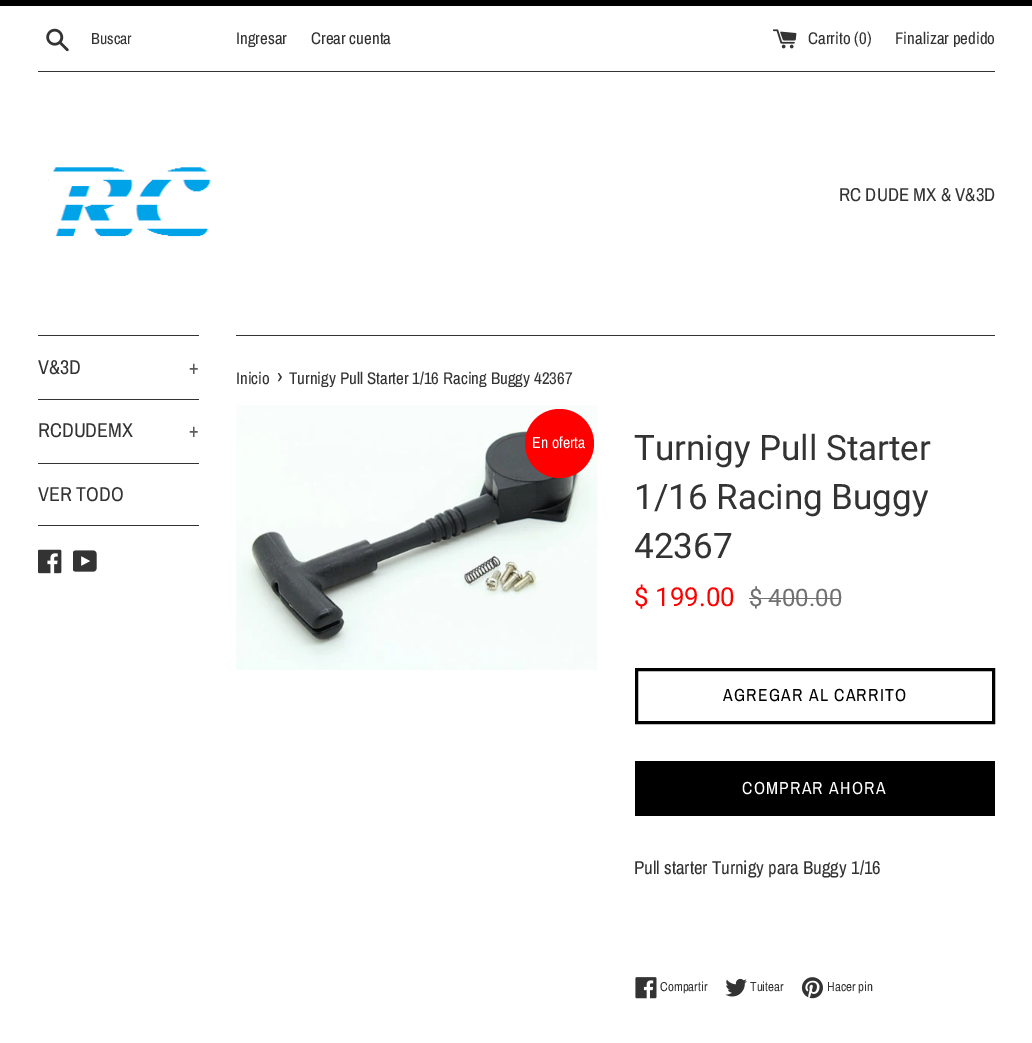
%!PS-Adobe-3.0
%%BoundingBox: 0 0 1032 1043
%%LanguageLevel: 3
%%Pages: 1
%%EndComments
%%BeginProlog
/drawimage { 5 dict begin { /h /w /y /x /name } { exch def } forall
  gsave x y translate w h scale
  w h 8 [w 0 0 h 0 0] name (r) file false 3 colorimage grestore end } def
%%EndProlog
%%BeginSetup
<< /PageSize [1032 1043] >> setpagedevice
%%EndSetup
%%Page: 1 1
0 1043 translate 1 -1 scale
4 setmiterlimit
1 setgray
0 0 1032 1043 rectfill
0 setgray
0 0 1032 6 rectfill
(images/1.raw) 46 28 23 24 drawimage
(images/2.raw) 773 29 24 20 drawimage
0.2 setgray
38 71 957 1 rectfill
(images/3.raw) 48 167 163 70 drawimage
38 335 161 1 rectfill
38 399 161 1 rectfill
38 463 161 1 rectfill
38 525 161 1 rectfill
(images/4.raw) 38 549 24 25 drawimage
(images/5.raw) 73 550 24 22 drawimage
236 335 759 1 rectfill
(images/6.raw) 236 405 362 265 drawimage
1 0 0 setrgbcolor
newpath 559.5 443.5 34.5 0 360 arc closepath fill
0.439 setgray
749 598 92 1 rectfill
0 setgray
3 setlinewidth
636.5 669.5 357 53 rectstroke
635 761 360 55 rectfill
(images/7.raw) 635 977 22 22 drawimage
(images/8.raw) 725 978 22 19 drawimage
(images/9.raw) 801 977 22 22 drawimage
/ArchivoNarrow-Regular [16 0 0 -16 0 0] selectfont
0.2 setgray
91 44 moveto (Buscar) show
/ArchivoNarrow-Regular [16.9 0 0 -16.9 0 0] selectfont
236 44 moveto (Ingresar) show
311 44 moveto (Crear cuenta) show
808 44 moveto (Carrito \(0\)) show
895 44 moveto (Finalizar pedido) show
/ArchivoNarrow-Regular [18.75 0 0 -18.75 0 0] selectfont
839 201 moveto (RC DUDE MX & V&3D) show
/ArchivoNarrow-Regular [20 0 0 -20 0 0] selectfont
38 374 moveto (V&3D) show
0.361 setgray
189 374 moveto (+) show
0.2 setgray
38 437 moveto (RCDUDEMX) show
0.361 setgray
189 437 moveto (+) show
0.2 setgray
38 501 moveto (VER TODO) show
/ArchivoNarrow-Regular [16.9 0 0 -16.9 0 0] selectfont
236 384 moveto (Inicio) show
/ArchivoNarrow-Regular [21 0 0 -21 0 0] selectfont
277 384 moveto (›) show
/ArchivoNarrow-Regular [16.9 0 0 -16.9 0 0] selectfont
289 384 moveto (Turnigy Pull Starter 1/16 Racing Buggy 42367) show
/ArchivoNarrow-Regular [16 0 0 -16 0 0] selectfont
1 setgray
532 448 moveto (En oferta) show
/Roboto-Regular [35 0 0 -35 0 0] selectfont
0.2 setgray
634 460 moveto (Turnigy Pull Starter) show
634 509 moveto (1/16 Racing Buggy) show
634 558 moveto (42367) show
/Roboto-Regular [26 0 0 -26 0 0] selectfont
1 0 0 setrgbcolor
634 606 moveto ($ 199.00) show
/Roboto-Regular [24 0 0 -24 0 0] selectfont
0.439 setgray
749 606 moveto ($ 400.00) show
/ArchivoNarrow-Regular [17.5 0 0 -17.5 0 0] selectfont
0 setgray
723 701 moveto 1.25 0 (AGREGAR AL CARRITO) ashow
1 setgray
742 794 moveto 1.25 0 (COMPRAR AHORA) ashow
/ArchivoNarrow-Regular [18.75 0 0 -18.75 0 0] selectfont
0.2 setgray
634 874 moveto (Pull starter Turnigy para Buggy 1/16) show
/ArchivoNarrow-Regular [13 0 0 -13 0 0] selectfont
660 991 moveto (Compartir) show
750 991 moveto (Tuitear) show
827 991 moveto (Hacer pin) show
showpage
%%EOF
